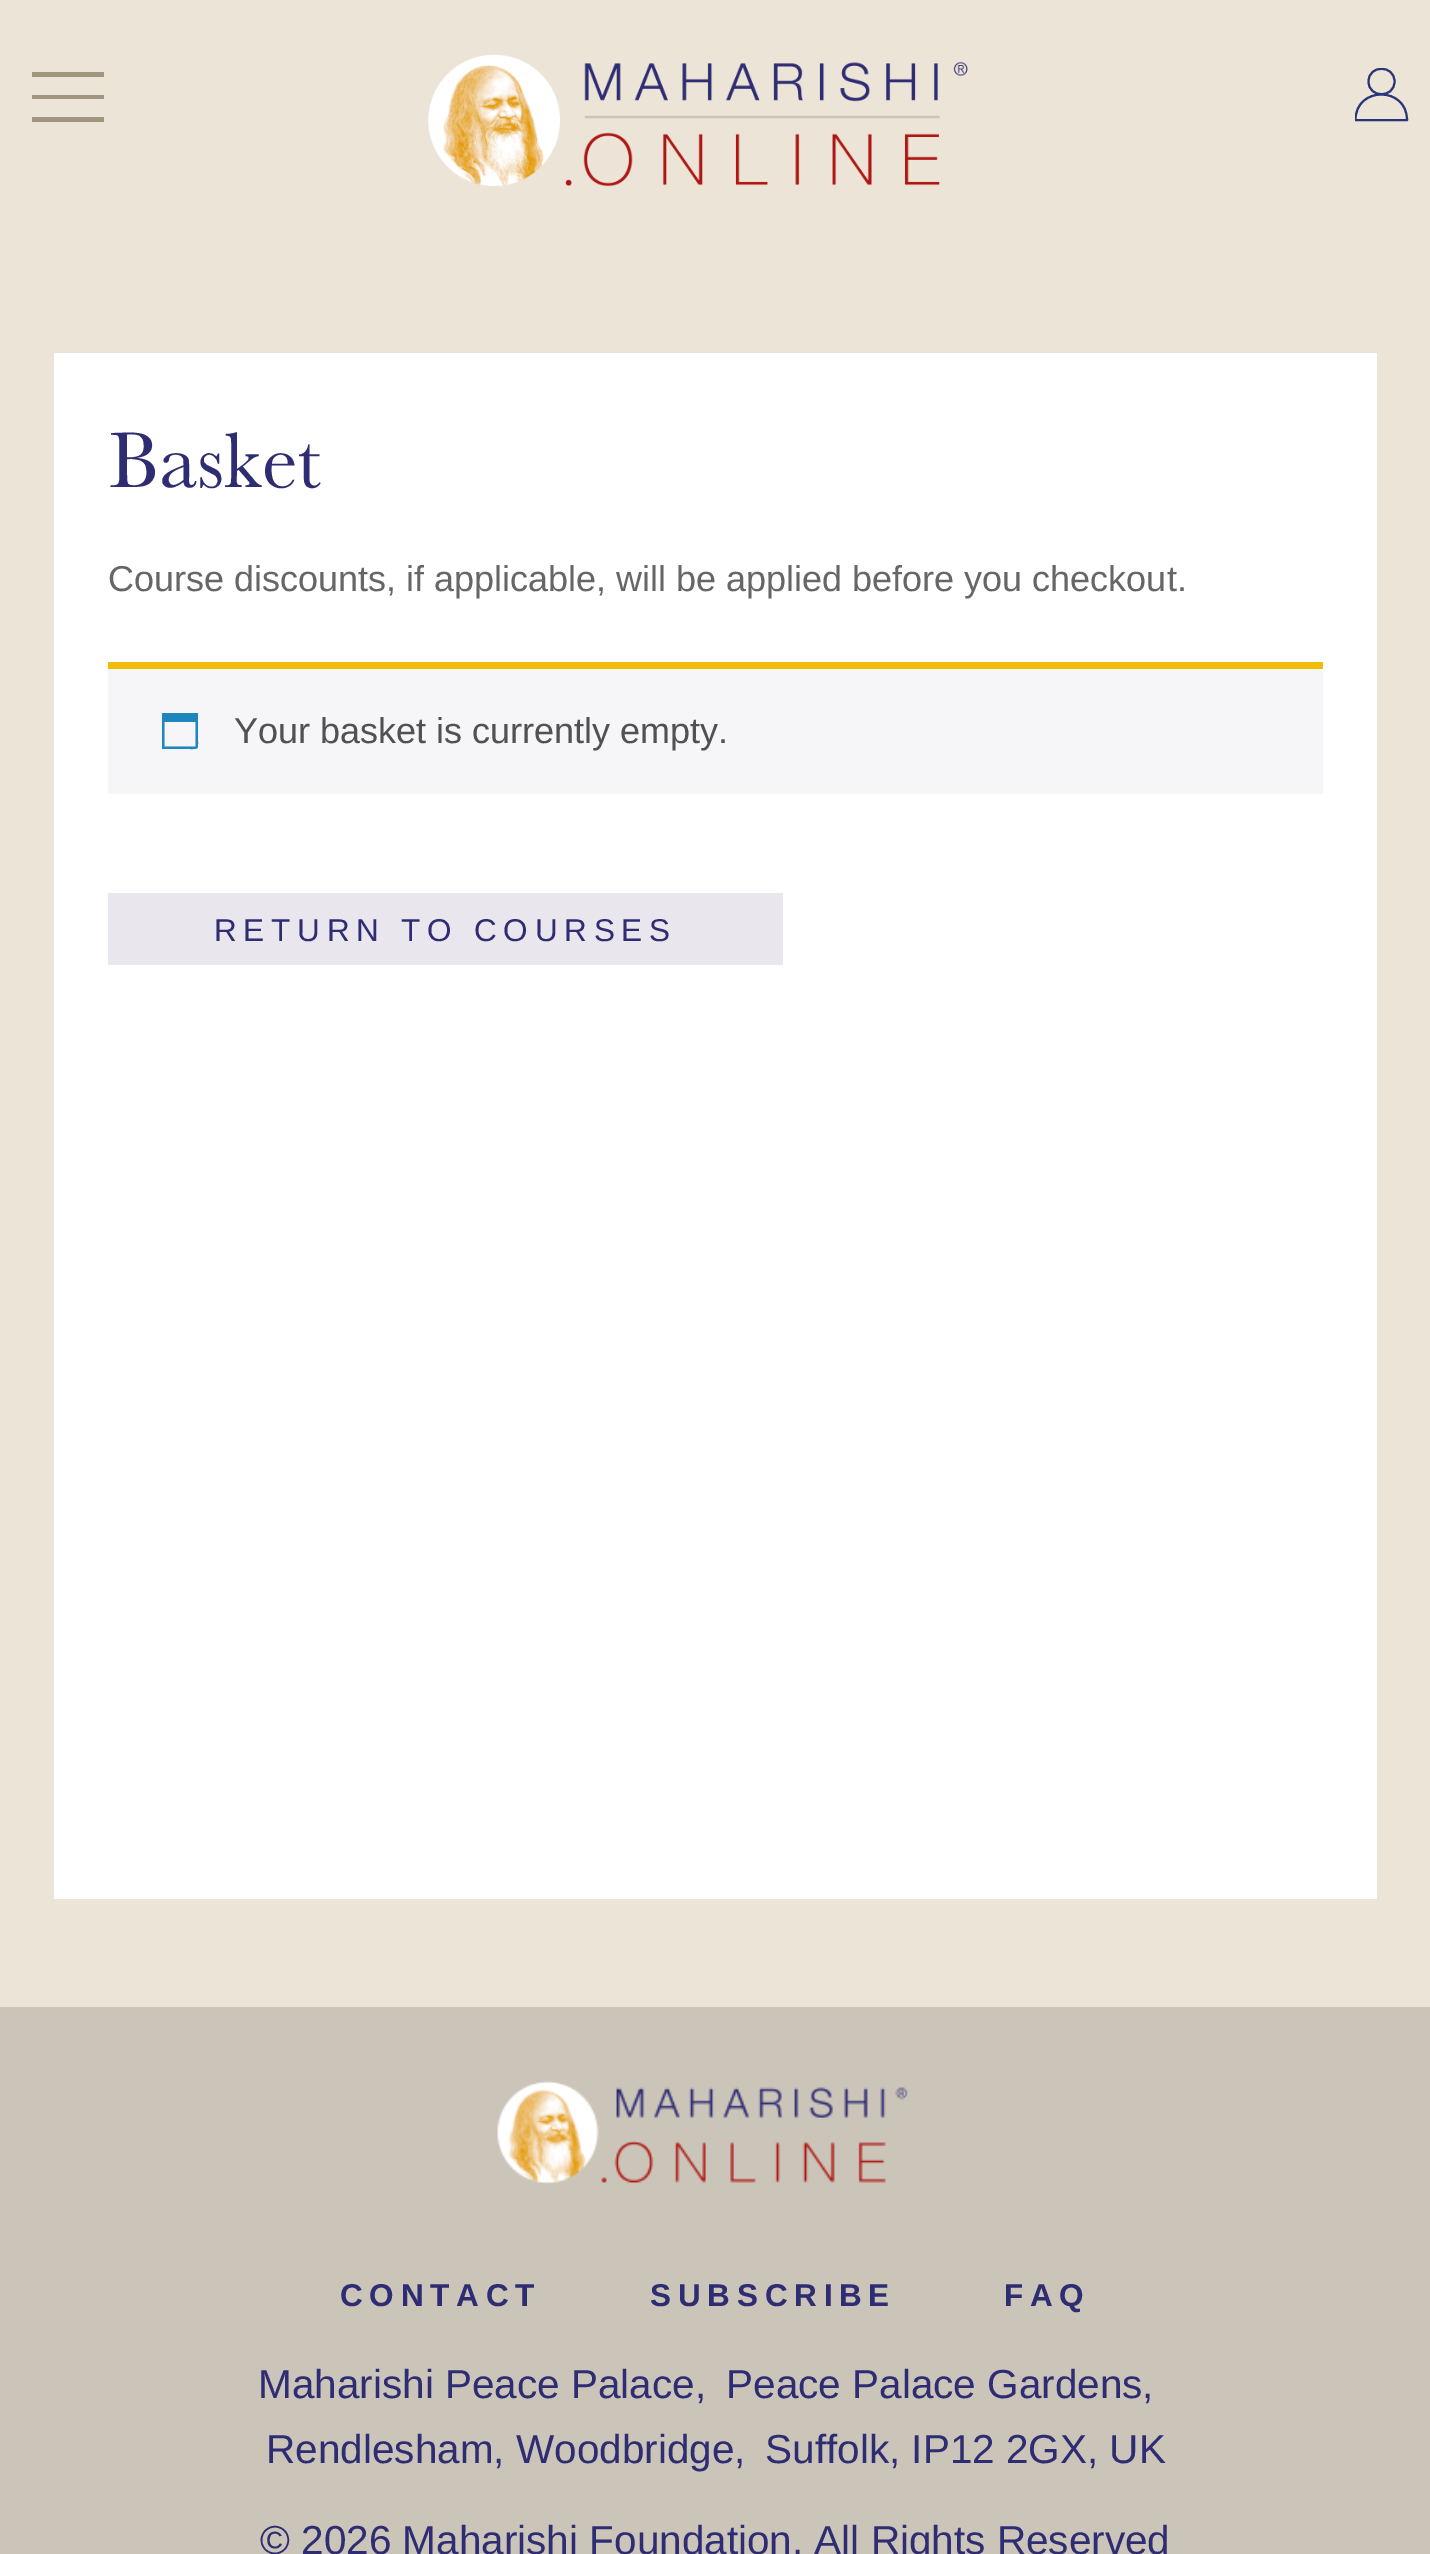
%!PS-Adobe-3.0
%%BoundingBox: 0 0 1430 2554
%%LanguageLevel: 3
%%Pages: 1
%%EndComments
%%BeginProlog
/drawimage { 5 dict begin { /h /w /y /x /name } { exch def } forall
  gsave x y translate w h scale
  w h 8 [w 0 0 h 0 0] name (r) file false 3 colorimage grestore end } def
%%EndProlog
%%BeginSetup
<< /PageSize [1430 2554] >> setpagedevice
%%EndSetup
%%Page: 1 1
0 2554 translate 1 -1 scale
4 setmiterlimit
0.925 0.894 0.843 setrgbcolor
0 0 1430 2554 rectfill
0.627 0.584 0.494 setrgbcolor
32 72 72 5 rectfill
32 95 72 4 rectfill
32 117 72 5 rectfill
(images/1.raw) 428 54 540 133 drawimage
gsave
1355 68 54 54 rectclip
0.165 0.204 0.471 setrgbcolor
2 setlinewidth
1 setlinecap
1 setlinejoin
newpath 1394.5 81.5 moveto 1394.5 98.5 1368.5 98.5 1368.5 81.5 curveto 1368.5 64.5 1394.5 64.5 1394.5 81.5 curveto closepath 1355.5 120 moveto 1355.5 86 1407 86 1407 120 curveto closepath stroke
grestore
1 setgray
54 353 1323 1546 rectfill
0.965 0.961 0.973 setrgbcolor
108 669 1215 125 rectfill
0.945 0.733 0.035 setrgbcolor
108 662 1215 7 rectfill
0.118 0.522 0.745 setrgbcolor
newpath 195.5 722 moveto 164.5 722 lineto 164.5 746.5 lineto 195.5 746.5 lineto closepath 198 713 moveto 198 741 lineto 198 749.5 198.5 749 190 749 curveto 162 749 lineto 162 713 lineto closepath fill
0.914 0.902 0.929 setrgbcolor
108 893 675 72 rectfill
0.796 0.773 0.725 setrgbcolor
0 2007 1430 547 rectfill
(images/2.raw) 497 2081 411 103 drawimage
/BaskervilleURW-Regular [81 0 0 -81 0 0] selectfont
0.18 0.173 0.447 setrgbcolor
108 487 moveto (Basket) show
/LiberationSans-Regular [36 0 0 -36 0 0] selectfont
0.4 setgray
108 591 moveto (Course discounts, if applicable, will be applied before you checkout.) show
0.318 setgray
234 743 moveto (Your basket is currently empty.) show
/LiberationSans-Regular [31.5 0 0 -31.5 0 0] selectfont
0.18 0.173 0.447 setrgbcolor
214 941 moveto 6.75 0 (RETURN TO COURSES) ashow
/LiberationSans-Bold [31.5 0 0 -31.5 0 0] selectfont
340 2306 moveto 6.75 0 (CONTACT) ashow
650 2306 moveto 6.75 0 (SUBSCRIBE) ashow
1004 2306 moveto 6.75 0 (FAQ) ashow
/LiberationSans-Regular [40.5 0 0 -40.5 0 0] selectfont
258 2398 moveto (Maharishi Peace Palace,) show
726 2398 moveto (Peace Palace Gardens,) show
266 2463 moveto (Rendlesham, Woodbridge,) show
765 2463 moveto (Suffolk, IP12 2GX, UK) show
260 2554 moveto (© 2026 Maharishi Foundation. All Rights Reserved) show
showpage
%%EOF
